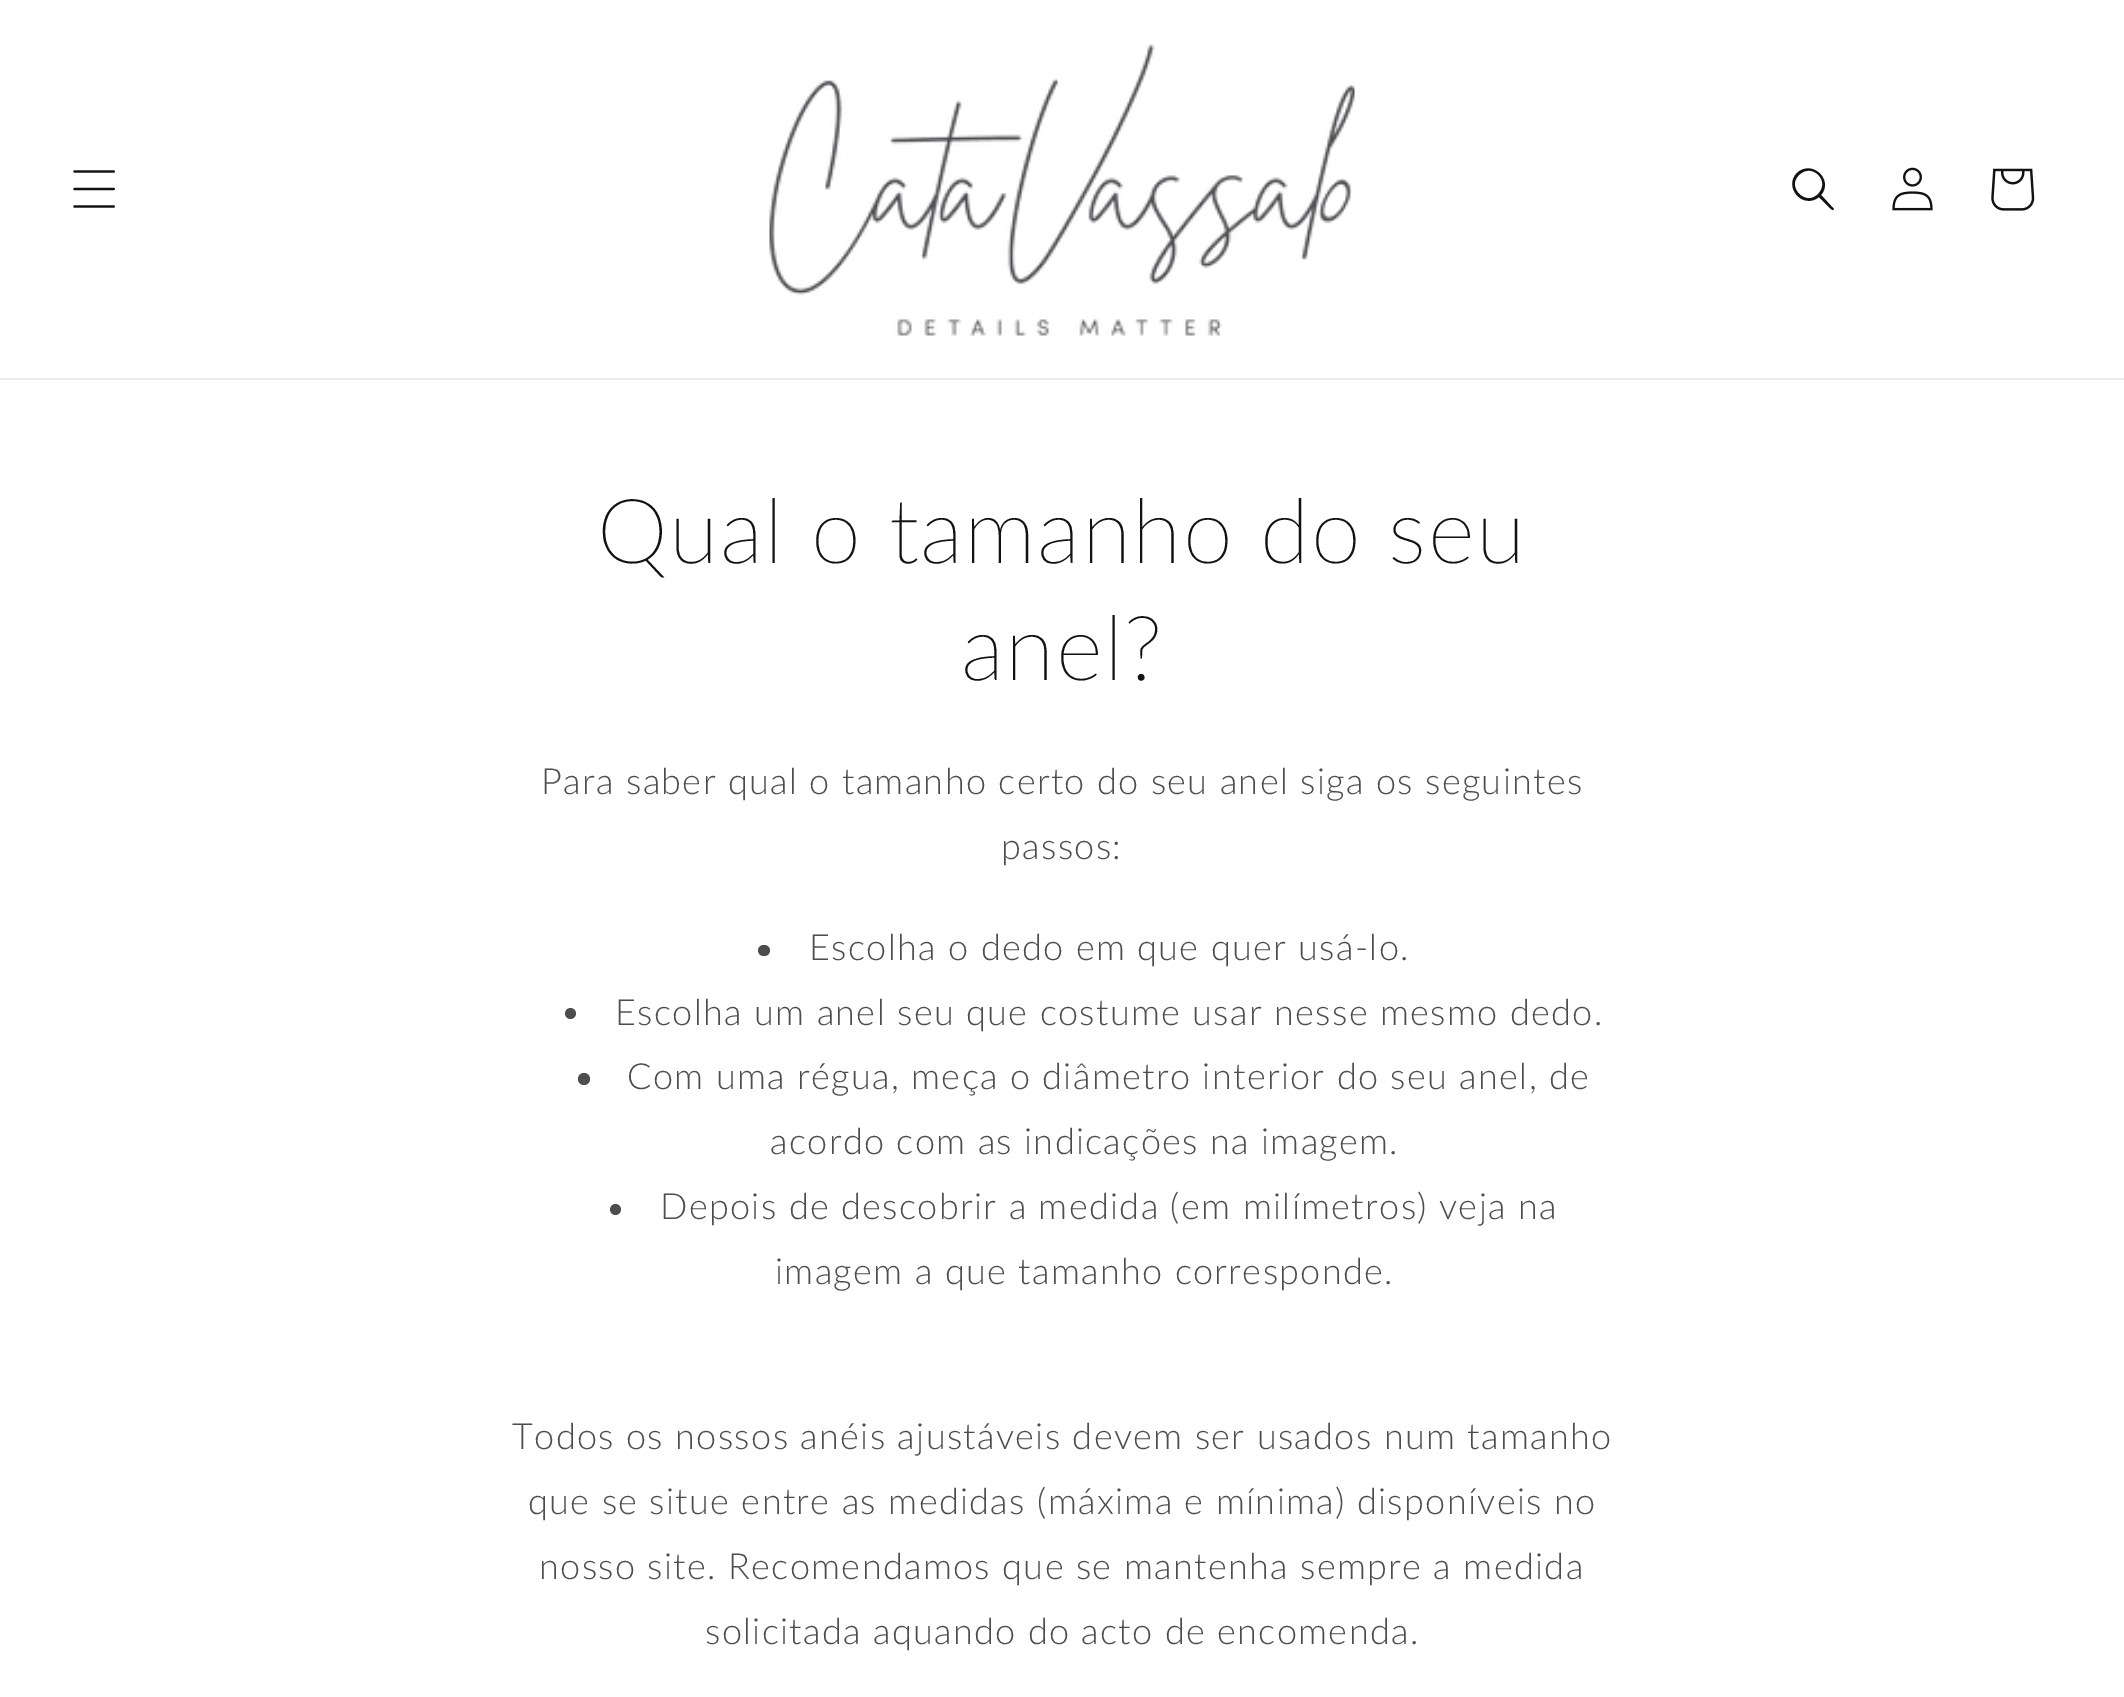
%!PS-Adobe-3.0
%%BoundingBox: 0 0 2124 1697
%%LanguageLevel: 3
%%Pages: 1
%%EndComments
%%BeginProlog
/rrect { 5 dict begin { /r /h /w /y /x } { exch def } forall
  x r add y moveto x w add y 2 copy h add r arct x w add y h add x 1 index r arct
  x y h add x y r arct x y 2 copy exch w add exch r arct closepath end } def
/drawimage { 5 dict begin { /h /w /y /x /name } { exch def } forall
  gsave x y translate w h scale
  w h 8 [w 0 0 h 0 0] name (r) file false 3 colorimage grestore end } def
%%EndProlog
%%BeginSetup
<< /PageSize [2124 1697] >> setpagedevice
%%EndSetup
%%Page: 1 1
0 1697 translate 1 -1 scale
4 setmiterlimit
1 setgray
0 0 2124 1697 rectfill
0.925 setgray
0 378 2124 2 rectfill
(images/1.raw) 73 170 42 38 drawimage
(images/2.raw) 769 44 586 293 drawimage
0.071 setgray
newpath 1818 194 moveto 1806 207 1786 187 1799 175 curveto 1812 162 1831 181 1818 194 curveto closepath 1819 197 moveto 1803 210 1783 187 1797 173 curveto 1812 159 1834 180 1821 195 curveto 1834 209 lineto 1833 210 lineto 1832 211 1821 199 1819 197 curveto closepath eofill
(images/3.raw) 1892 167 41 44 drawimage
(images/4.raw) 1991 168 44 43 drawimage
0.302 setgray
758 945 12 11 5.5 rrect fill
newpath 570.5 1013.5 5.5 0 360 arc closepath fill
newpath 584 1079 6 0 360 arc closepath fill
newpath 615.5 1209.5 5.5 0 360 arc closepath fill
/Lato-Light [90 0 0 -90 0 0] selectfont
0.071 setgray
597 563 moveto 1.35 0 (Qual o tamanho do seu) ashow
961 680 moveto 1.35 0 (anel?) ashow
/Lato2-Light [36 0 0 -36 0 0] selectfont
0.302 setgray
541 794 moveto 1.35 0 (Para saber qual o tamanho certo do seu anel siga os seguintes) ashow
1001 859 moveto 1.35 0 (passos:) ashow
809 960 moveto 1.35 0 (Escolha o dedo em que quer usá-lo.) ashow
615 1025 moveto 1.35 0 (Escolha um anel seu que costume usar nesse mesmo dedo.) ashow
627 1089 moveto 1.35 0 (Com uma régua, meça o diâmetro interior do seu anel, de) ashow
770 1154 moveto 1.35 0 (acordo com as indicações na imagem.) ashow
660 1219 moveto 1.35 0 (Depois de descobrir a medida \(em milímetros\) veja na) ashow
775 1284 moveto 1.35 0 (imagem a que tamanho corresponde.) ashow
512 1449 moveto 1.35 0 (Todos os nossos anéis ajustáveis devem ser usados num tamanho) ashow
528 1514 moveto 1.35 0 (que se situe entre as medidas \(máxima e mínima\) disponíveis no) ashow
539 1579 moveto 1.35 0 (nosso site. Recomendamos que se mantenha sempre a medida) ashow
705 1644 moveto 1.35 0 (solicitada aquando do acto de encomenda.) ashow
showpage
%%EOF
